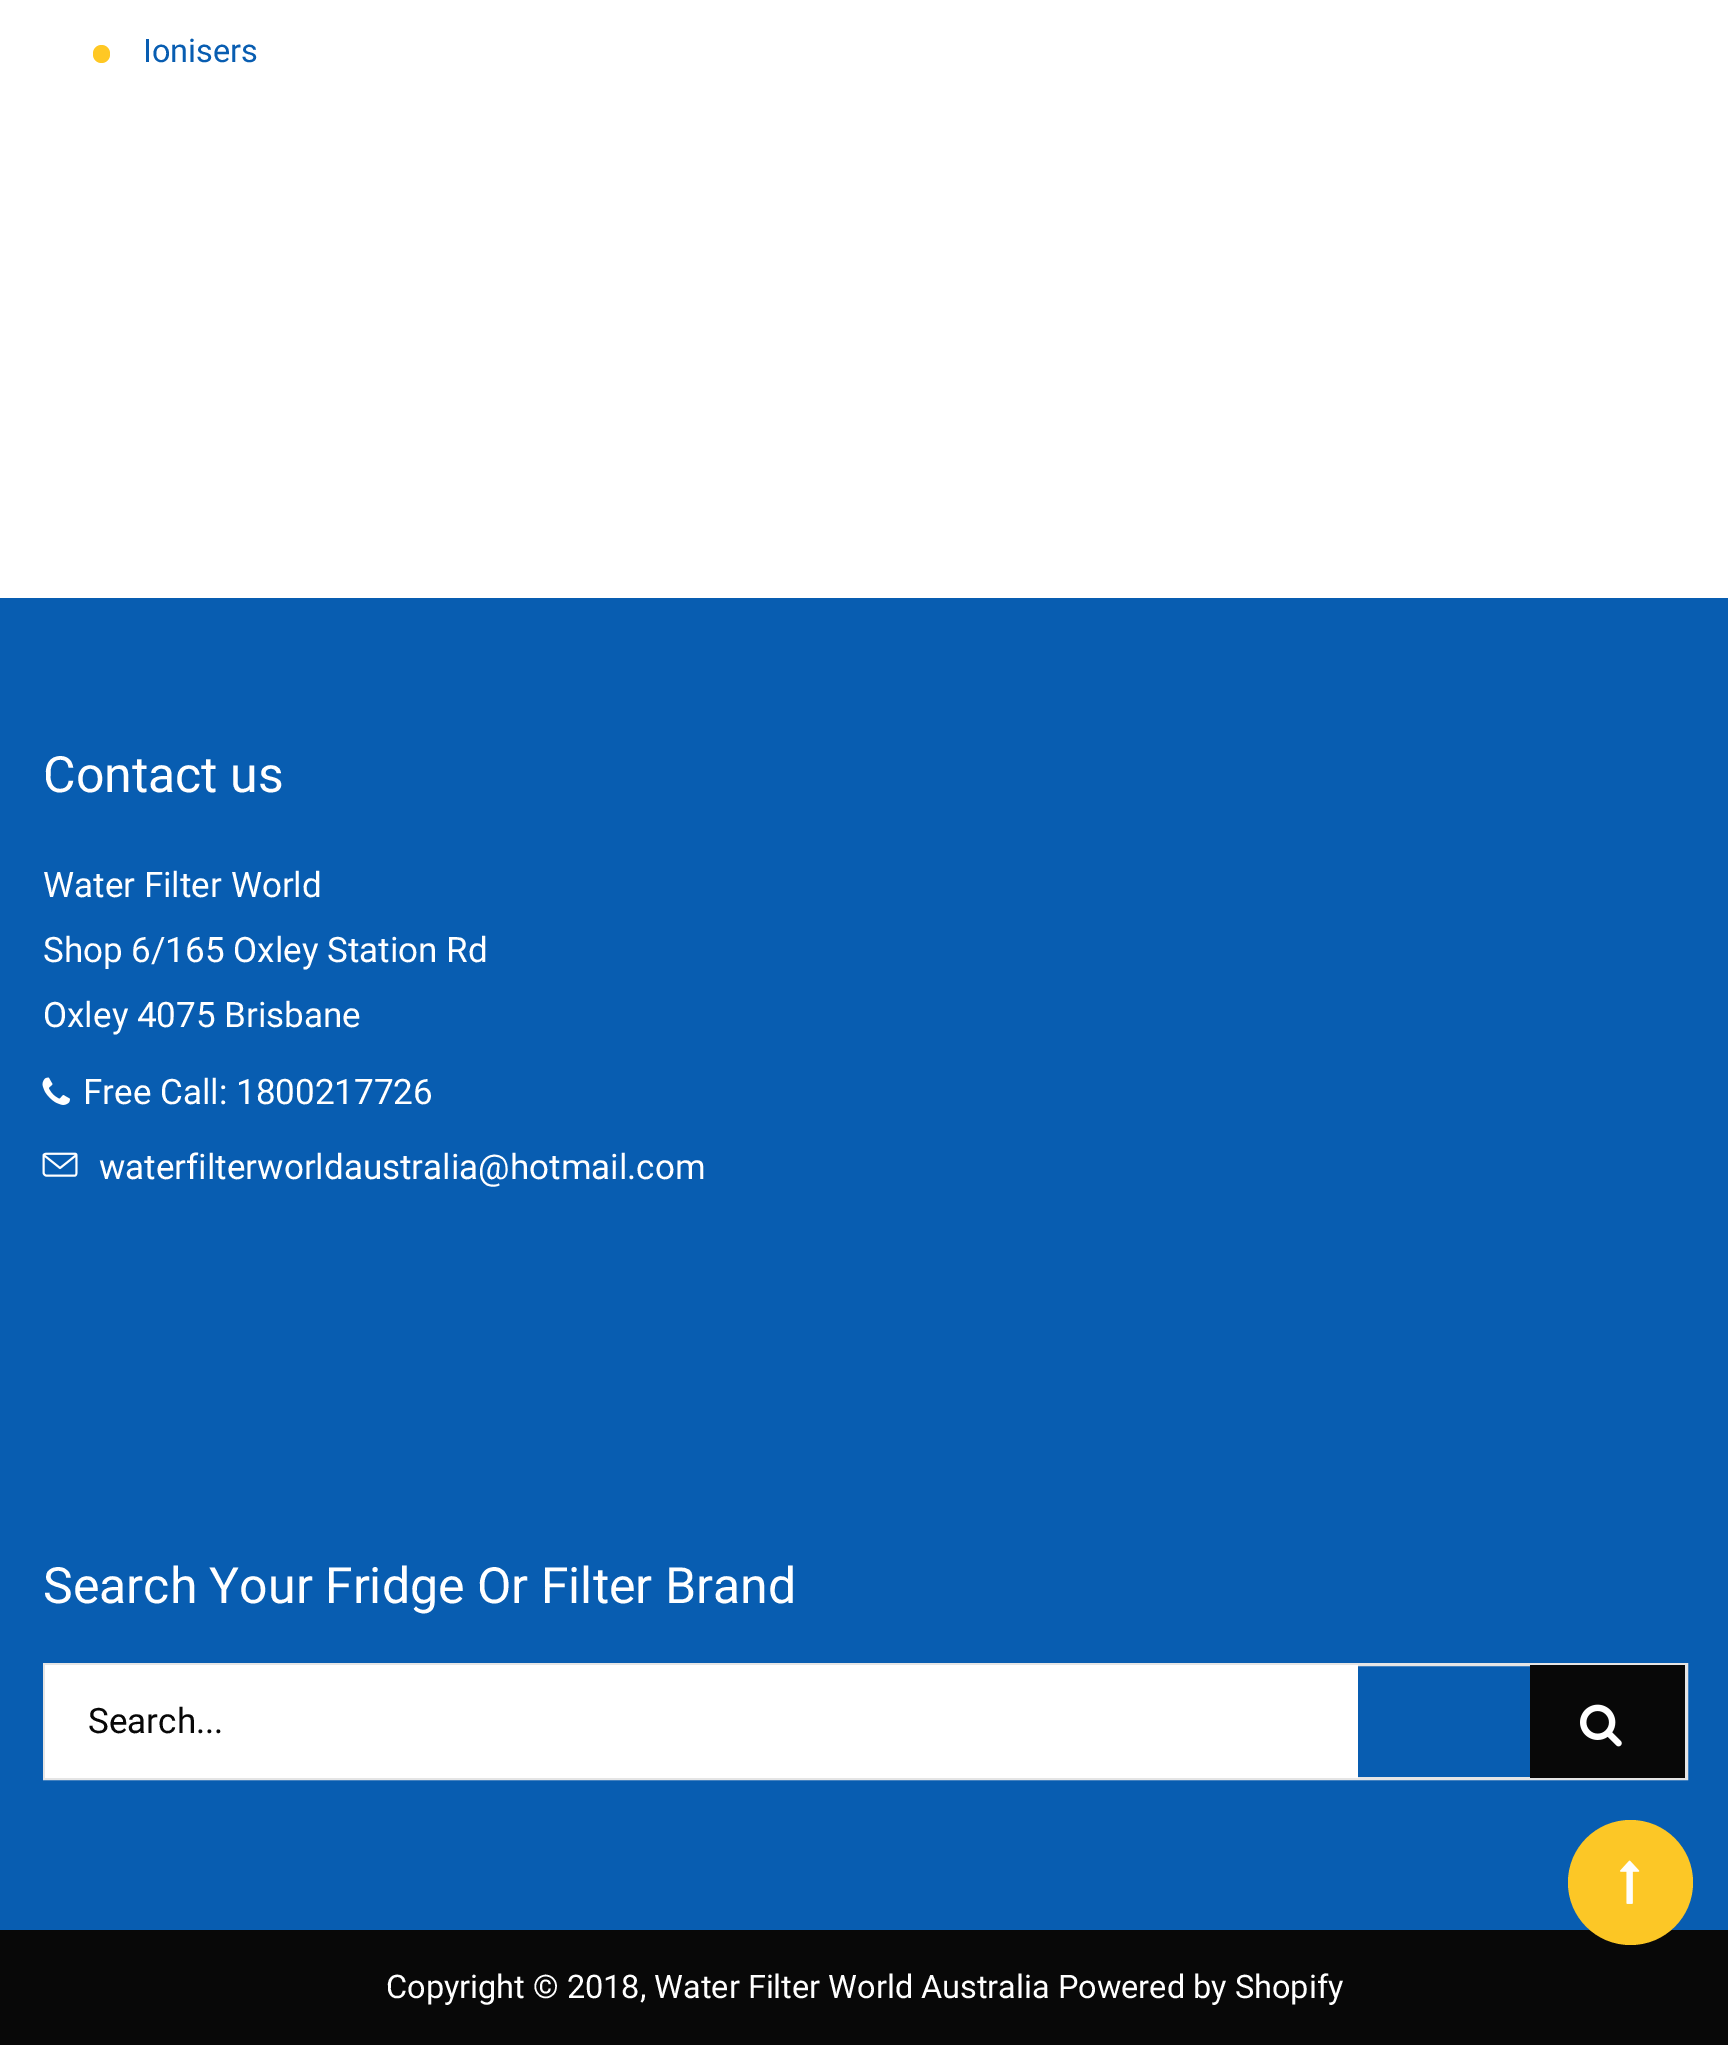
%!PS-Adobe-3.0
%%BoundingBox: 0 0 1728 2045
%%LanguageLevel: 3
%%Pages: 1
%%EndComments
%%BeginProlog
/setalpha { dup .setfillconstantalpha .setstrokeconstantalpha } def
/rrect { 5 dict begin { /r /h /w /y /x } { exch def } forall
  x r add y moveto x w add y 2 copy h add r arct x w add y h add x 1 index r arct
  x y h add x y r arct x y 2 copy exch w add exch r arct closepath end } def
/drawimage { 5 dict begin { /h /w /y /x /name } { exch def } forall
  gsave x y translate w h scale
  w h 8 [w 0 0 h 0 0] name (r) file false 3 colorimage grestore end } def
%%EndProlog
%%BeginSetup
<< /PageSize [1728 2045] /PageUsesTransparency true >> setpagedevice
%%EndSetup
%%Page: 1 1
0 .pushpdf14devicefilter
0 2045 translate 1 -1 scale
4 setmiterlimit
1 setgray
0 0 1728 2045 rectfill
1 0.784 0.141 setrgbcolor
93 45 17 18 8.5 rrect fill
0.031 0.365 0.694 setrgbcolor
0 598 1728 1332 rectfill
(images/1.raw) 42 1077 28 28 drawimage
(images/2.raw) 42 1152 36 25 drawimage
0.898 setgray
3 setlinewidth
44.5 1664.5 1642 114 rectstroke
1 setgray
45 1665 1313 113 rectfill
0.031 setgray
1530 1665 155 113 rectfill
(images/3.raw) 1580 1704 42 43 drawimage
0 1930 1728 115 rectfill
0.99 setalpha
1 0.784 0.141 setrgbcolor
newpath 1630.5 1882.5 62.5 0 360 arc closepath fill
1 setalpha
(images/4.raw) 1620 1860 20 44 drawimage
/Roboto-Regular [32.5 0 0 -32.5 0 0] selectfont
0.031 0.365 0.694 setrgbcolor
143 62 moveto (Ionisers) show
/Roboto-Regular [50 0 0 -50 0 0] selectfont
1 setgray
43 792 moveto (Contact us) show
/Roboto-Regular [35 0 0 -35 0 0] selectfont
43 897 moveto (Water Filter World) show
43 962 moveto (Shop 6/165 Oxley Station Rd) show
43 1027 moveto (Oxley 4075 Brisbane) show
83 1104 moveto (Free Call: 1800217726) show
99 1179 moveto (waterfilterworldaustralia@hotmail.com) show
/Roboto-Regular [50 0 0 -50 0 0] selectfont
43 1603 moveto (Search Your Fridge Or Filter Brand) show
/Roboto-Regular [35 0 0 -35 0 0] selectfont
0.031 setgray
88 1733 moveto (Search...) show
/Roboto-Regular [32.5 0 0 -32.5 0 0] selectfont
1 setgray
386 1998 moveto (Copyright © 2018, Water Filter World Australia Powered by Shopify) show
.poppdf14devicefilter showpage
%%EOF
